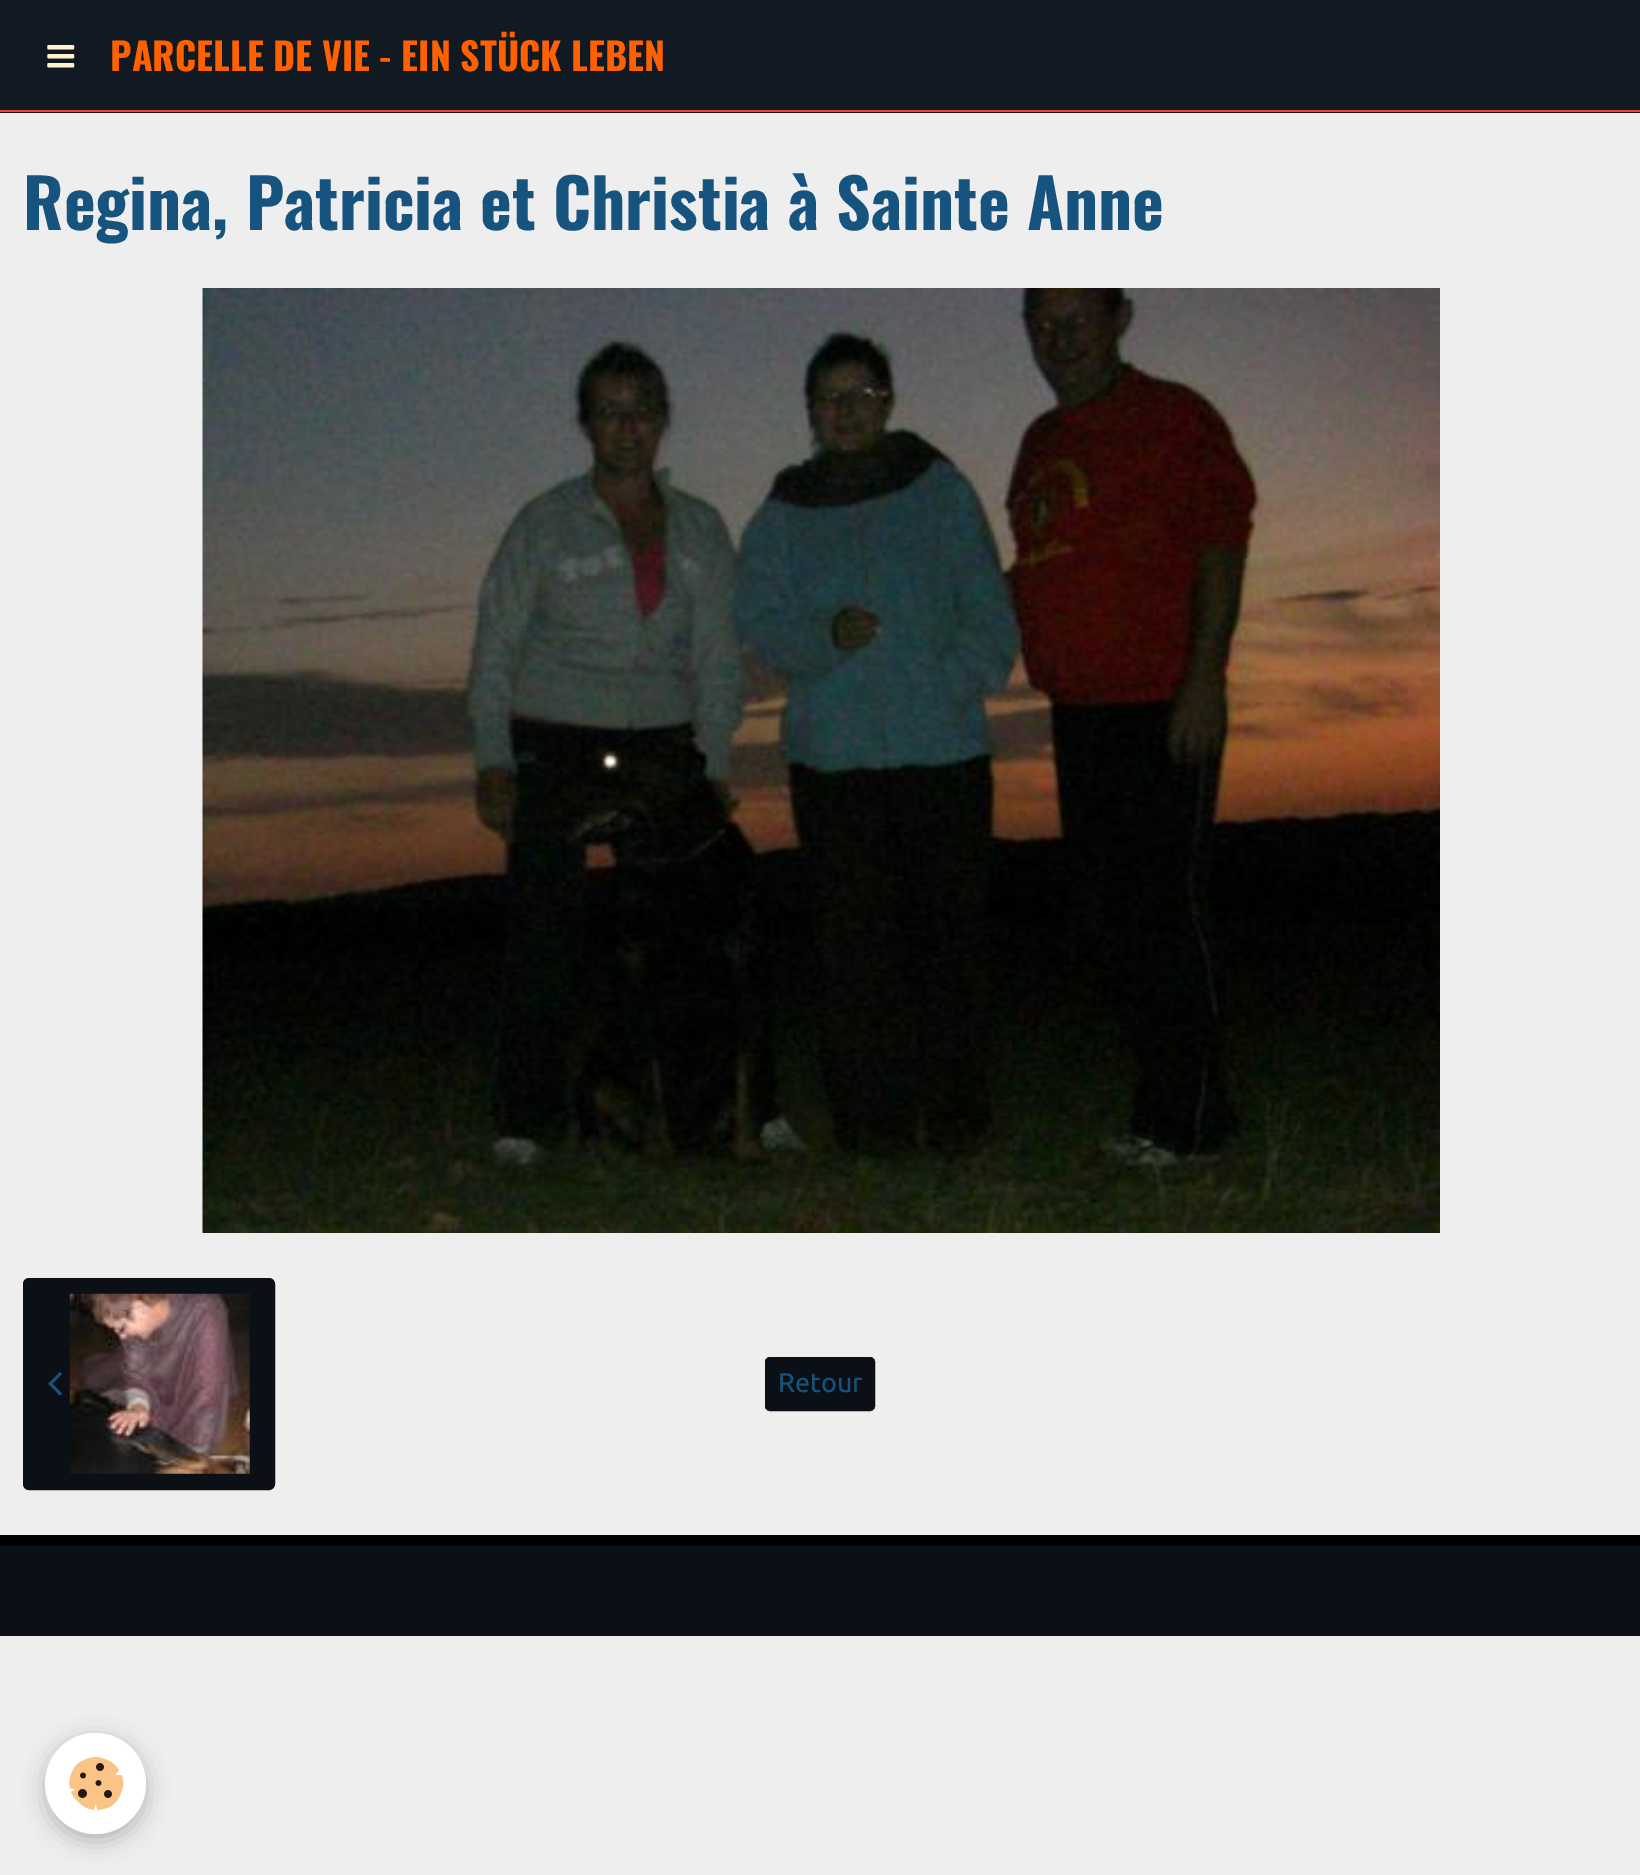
%!PS-Adobe-3.0
%%BoundingBox: 0 0 1640 1875
%%LanguageLevel: 3
%%Pages: 1
%%EndComments
%%BeginProlog
/setalpha { dup .setfillconstantalpha .setstrokeconstantalpha } def
/rrect { 5 dict begin { /r /h /w /y /x } { exch def } forall
  x r add y moveto x w add y 2 copy h add r arct x w add y h add x 1 index r arct
  x y h add x y r arct x y 2 copy exch w add exch r arct closepath end } def
/softshadow { 12 dict begin { /a /b /q /h /w /y /x } { exch def } forall gsave /was 0 def
  9 -2 -9 { dup b mul 4 div /e exch def 1 sub .425 mul 2.718 exch exp 1 add a .99 .min exch div /now exch def
    1 1 now sub 1 was sub div sub setalpha /was now def
    w h .min e 2 mul add 0 gt { x e sub y e sub w e 2 mul add h e 2 mul add
      q e add b .6 mul add w h .min 2 div e add .min 0 .max rrect fill } if } for grestore end } def
/drawimage { 5 dict begin { /h /w /y /x /name } { exch def } forall
  gsave x y translate w h scale
  w h 8 [w 0 0 h 0 0] name (r) file false 3 colorimage grestore end } def
%%EndProlog
%%BeginSetup
<< /PageSize [1640 1875] /PageUsesTransparency true >> setpagedevice
%%EndSetup
%%Page: 1 1
0 .pushpdf14devicefilter
0 1875 translate 1 -1 scale
4 setmiterlimit
0.933 setgray
0 0 1640 1875 rectfill
0.067 0.098 0.133 setrgbcolor
0 0 1640 113 rectfill
0.957 0.263 0.212 setrgbcolor
0 110 1640 2 rectfill
(images/1.raw) 47 45 28 23 drawimage
(images/2.raw) 202 288 1238 945 drawimage
0.043 0.063 0.086 setrgbcolor
24 1279 250 210 5 rrect gsave fill grestore
2 setlinewidth
stroke
(images/3.raw) 48 1372 14 24 drawimage
(images/4.raw) 69 1293 181 181 drawimage
766 1358 108 52 4 rrect gsave fill grestore
stroke
0 setgray
0 1535 1640 11 rectfill
0.043 0.063 0.086 setrgbcolor
0 1546 1640 90 rectfill
0 setgray
45 1739 101 102 50.5 11 0.24 softshadow
1 setgray
newpath 95.5 1783.5 50.5 0 360 arc closepath fill
(images/5.raw) 69 1756 55 54 drawimage
/Oswald-Bold [37.75 0 0 -37.75 0 0] selectfont
1 0.376 0 setrgbcolor
110 71 moveto (PARCELLE DE VIE - EIN STÜCK LEBEN) show
/Oswald-Bold [67.5 0 0 -67.5 0 0] selectfont
0.086 0.325 0.494 setrgbcolor
23 230 moveto (Regina, Patricia et Christia à Sainte Anne) show
/Ubuntu-Regular [27 0 0 -27 0 0] selectfont
778 1392 moveto (Retour) show
.poppdf14devicefilter showpage
%%EOF
